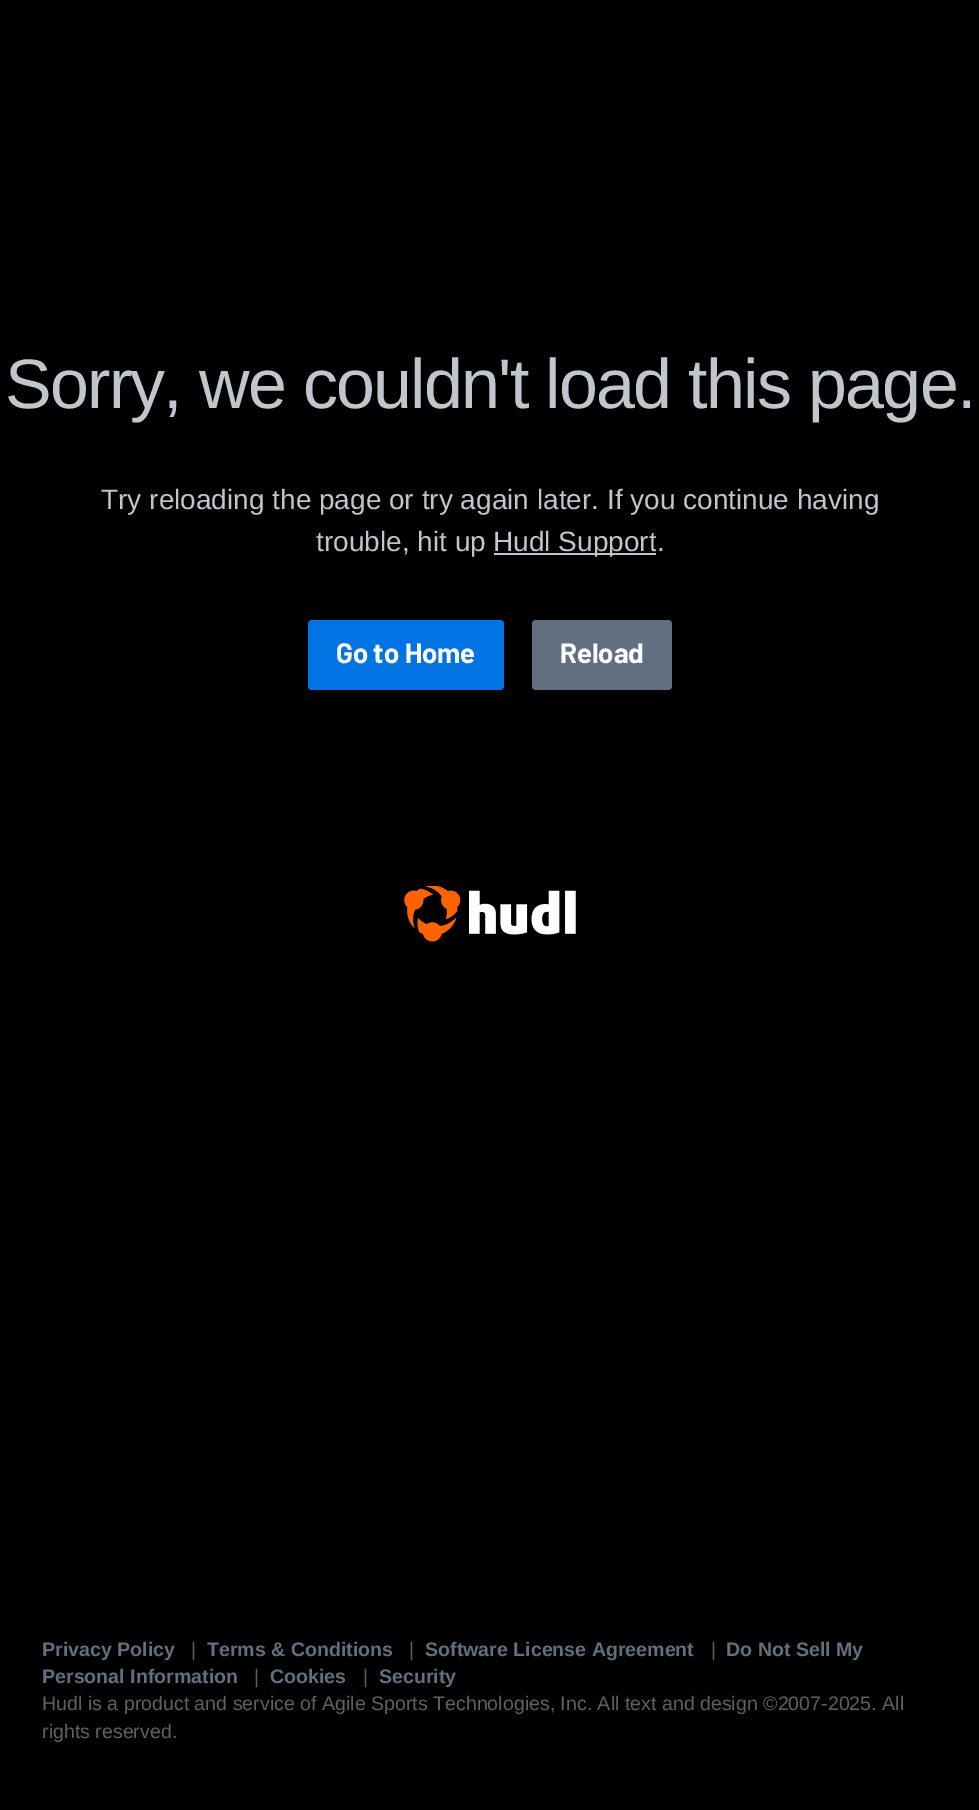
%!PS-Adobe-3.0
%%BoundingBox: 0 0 979 1810
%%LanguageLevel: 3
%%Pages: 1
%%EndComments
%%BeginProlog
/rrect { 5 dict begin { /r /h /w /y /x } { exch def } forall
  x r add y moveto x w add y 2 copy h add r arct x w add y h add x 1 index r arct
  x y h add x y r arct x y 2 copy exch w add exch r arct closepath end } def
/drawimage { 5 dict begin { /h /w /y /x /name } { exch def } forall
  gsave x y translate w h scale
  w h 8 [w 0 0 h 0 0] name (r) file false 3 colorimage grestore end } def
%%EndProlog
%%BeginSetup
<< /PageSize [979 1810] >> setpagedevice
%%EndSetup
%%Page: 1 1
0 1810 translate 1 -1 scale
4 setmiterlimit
0 setgray
0 0 979 1810 rectfill
0.753 0.776 0.804 setrgbcolor
494 553 162 2 rectfill
0.008 0.451 0.89 setrgbcolor
308 620 196 70 4 rrect fill
0.376 0.439 0.506 setrgbcolor
532 620 140 70 4 rrect fill
(images/1.raw) 404 886 172 56 drawimage
/LiberationSans-Regular [70 0 0 -70 0 0] selectfont
0.753 0.776 0.804 setrgbcolor
5 408 moveto -1.75 0 (Sorry, we couldn't load this page.) ashow
/LiberationSans-Regular [28 0 0 -28 0 0] selectfont
101 509 moveto (Try reloading the page or try again later. If you continue having) show
316 551 moveto (trouble, hit up) show
gsave
494 522 162 42 rectclip
493 551 moveto (Hudl Support) show
grestore
657 551 moveto (.) show
/Barlow-Bold [28 0 0 -28 0 0] selectfont
0.996 setgray
336 663 moveto (Go to Home) show
560 663 moveto (Reload) show
/LiberationSans-Bold [19.6 0 0 -19.6 0 0] selectfont
0.376 0.439 0.506 setrgbcolor
42 1656 moveto (Privacy Policy) show
/LiberationSans-Regular [19.6 0 0 -19.6 0 0] selectfont
0.361 0.38 0.4 setrgbcolor
191 1656 moveto (|) show
/LiberationSans-Bold [19.6 0 0 -19.6 0 0] selectfont
0.376 0.439 0.506 setrgbcolor
207 1656 moveto (Terms & Conditions) show
/LiberationSans-Regular [19.6 0 0 -19.6 0 0] selectfont
0.361 0.38 0.4 setrgbcolor
409 1656 moveto (|) show
/LiberationSans-Bold [19.6 0 0 -19.6 0 0] selectfont
0.376 0.439 0.506 setrgbcolor
425 1656 moveto (Software License Agreement) show
/LiberationSans-Regular [19.6 0 0 -19.6 0 0] selectfont
0.361 0.38 0.4 setrgbcolor
711 1656 moveto (|) show
/LiberationSans-Bold [19.6 0 0 -19.6 0 0] selectfont
0.376 0.439 0.506 setrgbcolor
726 1656 moveto (Do Not Sell My) show
42 1683 moveto (Personal Information) show
/LiberationSans-Regular [19.6 0 0 -19.6 0 0] selectfont
0.361 0.38 0.4 setrgbcolor
254 1683 moveto (|) show
/LiberationSans-Bold [19.6 0 0 -19.6 0 0] selectfont
0.376 0.439 0.506 setrgbcolor
270 1683 moveto (Cookies) show
/LiberationSans-Regular [19.6 0 0 -19.6 0 0] selectfont
0.361 0.38 0.4 setrgbcolor
363 1683 moveto (|) show
/LiberationSans-Bold [19.6 0 0 -19.6 0 0] selectfont
0.376 0.439 0.506 setrgbcolor
379 1683 moveto (Security) show
/LiberationSans-Regular [19.6 0 0 -19.6 0 0] selectfont
0.361 0.38 0.4 setrgbcolor
42 1710 moveto (Hudl is a product and service of Agile Sports Technologies, Inc. All text and design ©2007-2025. All) show
42 1738 moveto (rights reserved.) show
showpage
%%EOF
